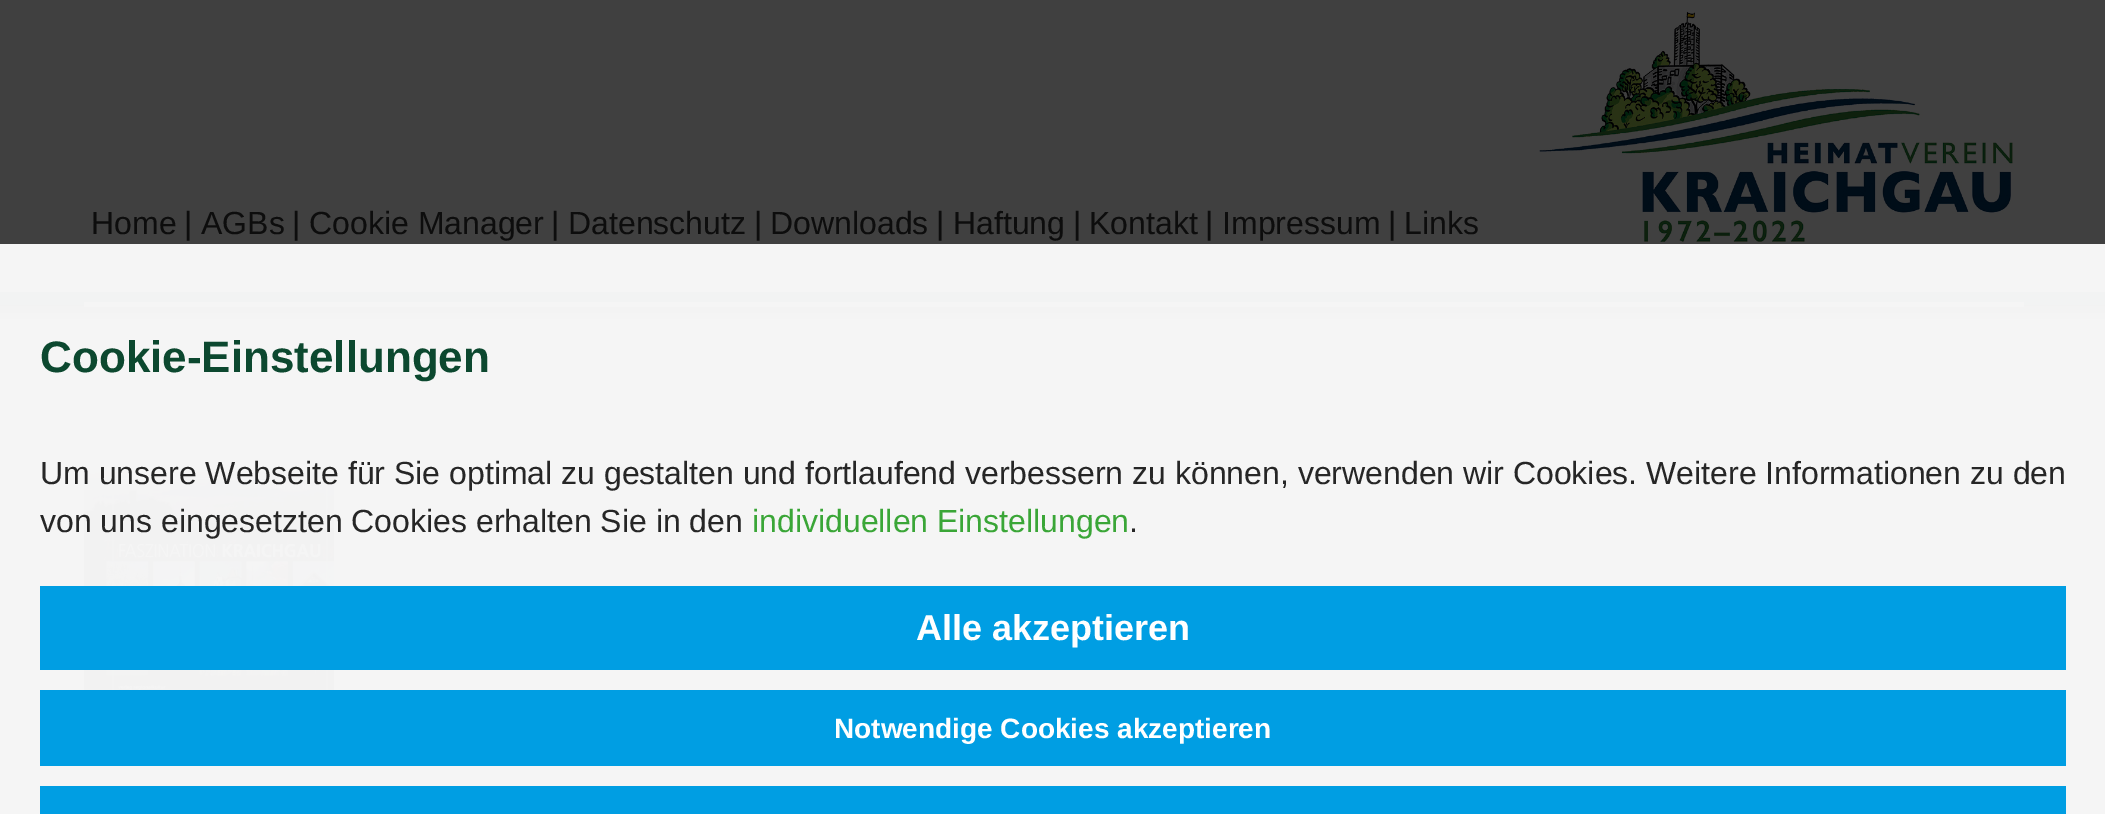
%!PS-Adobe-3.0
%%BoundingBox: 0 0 2105 814
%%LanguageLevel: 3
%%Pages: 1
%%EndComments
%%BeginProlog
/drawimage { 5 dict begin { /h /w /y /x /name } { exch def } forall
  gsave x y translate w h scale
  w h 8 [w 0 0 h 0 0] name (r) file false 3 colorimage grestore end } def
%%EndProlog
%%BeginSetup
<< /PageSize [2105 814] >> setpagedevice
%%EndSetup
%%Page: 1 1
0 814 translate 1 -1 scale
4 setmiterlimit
0.251 setgray
0 0 2105 814 rectfill
0.961 setgray
0 244 2105 570 rectfill
(images/1.raw) 1539 11 474 231 drawimage
(images/2.raw) 0 292 2105 34 drawimage
84 302 1940 5 rectfill
(images/3.raw) 84 472 250 218 drawimage
0 0.62 0.89 setrgbcolor
40 586 2026 84 rectfill
40 690 2026 76 rectfill
40 786 2026 28 rectfill
/LiberationSans-Regular [32 0 0 -32 0 0] selectfont
0.051 setgray
91 234 moveto (Home) show
184 234 moveto (|) show
201 234 moveto (AGBs) show
292 234 moveto (|) show
309 234 moveto (Cookie Manager) show
551 234 moveto (|) show
568 234 moveto (Datenschutz) show
754 234 moveto (|) show
770 234 moveto (Downloads) show
936 234 moveto (|) show
953 234 moveto (Haftung) show
1073 234 moveto (|) show
1089 234 moveto (Kontakt) show
1205 234 moveto (|) show
1222 234 moveto (Impressum) show
1388 234 moveto (|) show
1404 234 moveto (Links) show
/LiberationSans-Bold [44 0 0 -44 0 0] selectfont
0.047 0.282 0.184 setrgbcolor
40 372 moveto (Cookie-Einstellungen) show
/LiberationSans-Regular [32 0 0 -32 0 0] selectfont
0.149 setgray
40 484 moveto (Um unsere Webseite für Sie optimal zu gestalten und fortlaufend verbessern zu können, verwenden wir Cookies. Weitere Informationen zu den) show
40 532 moveto (von uns eingesetzten Cookies erhalten Sie in den) show
0.227 0.651 0.216 setrgbcolor
752 532 moveto (individuellen Einstellungen) show
0.149 setgray
1129 532 moveto (.) show
/LiberationSans-Bold [36 0 0 -36 0 0] selectfont
1 setgray
916 640 moveto (Alle akzeptieren) show
/LiberationSans-Bold [28 0 0 -28 0 0] selectfont
834 738 moveto (Notwendige Cookies akzeptieren) show
showpage
%%EOF
